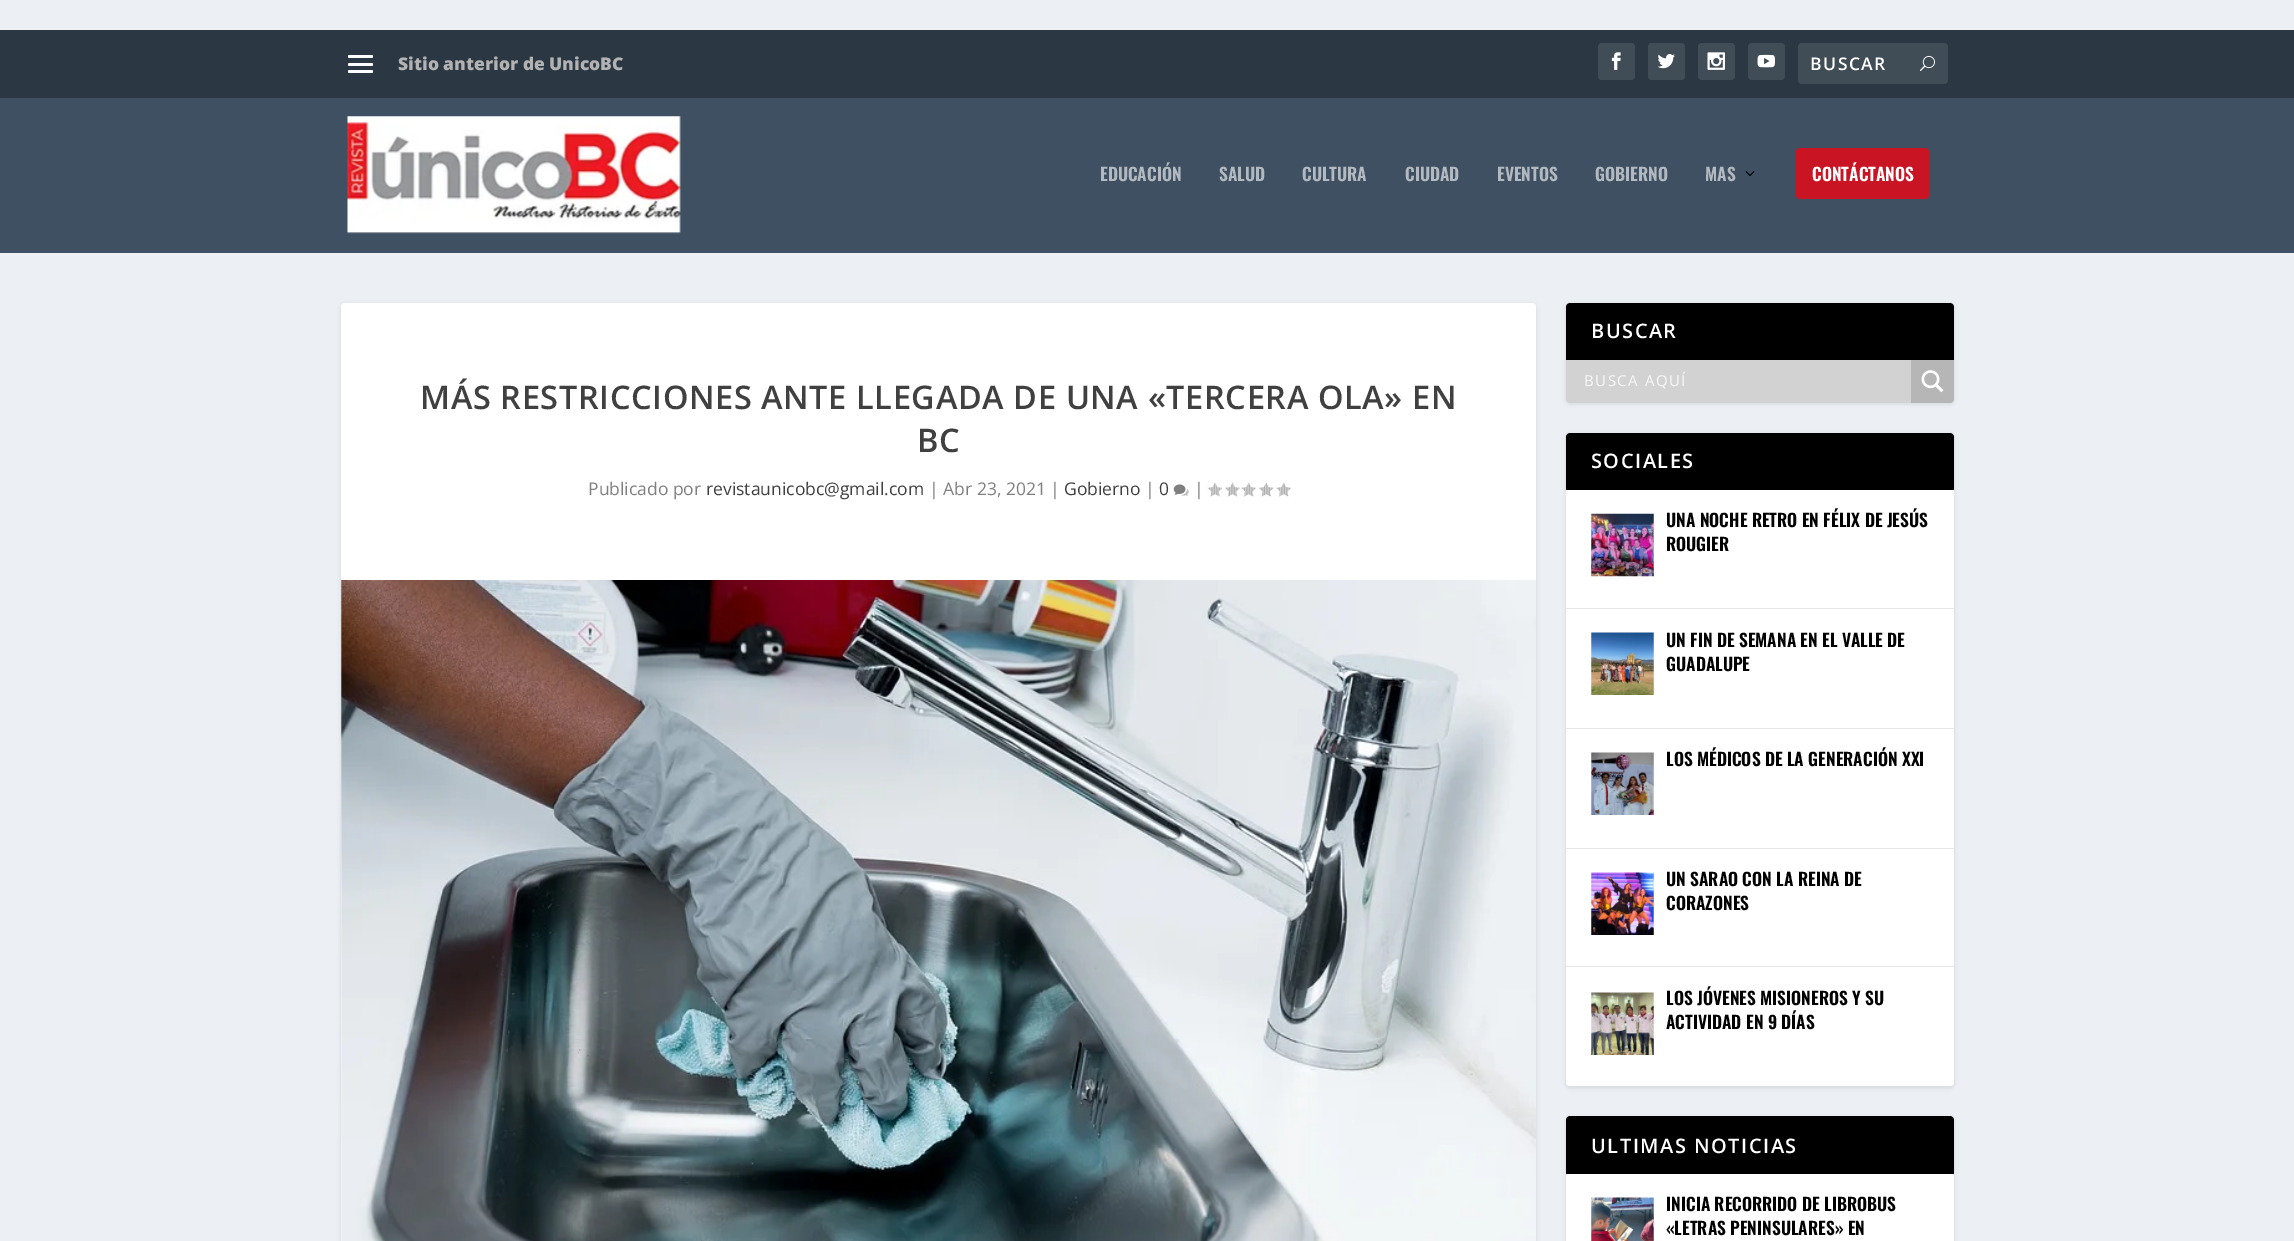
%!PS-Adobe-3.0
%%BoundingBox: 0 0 2294 1241
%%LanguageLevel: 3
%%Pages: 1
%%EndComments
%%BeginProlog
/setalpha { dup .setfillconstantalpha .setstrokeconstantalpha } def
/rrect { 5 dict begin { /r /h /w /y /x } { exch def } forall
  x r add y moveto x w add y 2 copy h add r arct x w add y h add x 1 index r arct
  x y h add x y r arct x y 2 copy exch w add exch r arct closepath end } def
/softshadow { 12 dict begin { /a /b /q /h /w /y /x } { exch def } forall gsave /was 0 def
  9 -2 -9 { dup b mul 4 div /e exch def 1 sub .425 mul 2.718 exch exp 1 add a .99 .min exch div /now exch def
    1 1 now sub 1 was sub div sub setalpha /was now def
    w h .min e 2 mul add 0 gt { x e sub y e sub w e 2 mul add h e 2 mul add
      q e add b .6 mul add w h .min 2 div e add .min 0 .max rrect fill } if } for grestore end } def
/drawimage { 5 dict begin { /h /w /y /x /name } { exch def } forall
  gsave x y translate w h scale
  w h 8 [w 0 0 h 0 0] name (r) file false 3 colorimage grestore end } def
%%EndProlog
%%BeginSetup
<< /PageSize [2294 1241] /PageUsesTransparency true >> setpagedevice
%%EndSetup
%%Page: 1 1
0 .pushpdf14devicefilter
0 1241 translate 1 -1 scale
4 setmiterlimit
0.925 0.941 0.961 setrgbcolor
0 0 2294 1241 rectfill
0.169 0.22 0.263 setrgbcolor
0 30 2294 68 rectfill
1 setgray
348 55 25 3 1.5 rrect fill
348 63 25 3 1.5 rrect fill
348 70 25 3 1.5 rrect fill
0.251 0.298 0.337 setrgbcolor
1598 43 37 37 4 rrect fill
(images/1.raw) 1611 52 10 18 drawimage
1648 43 37 37 4 rrect fill
(images/2.raw) 1657 54 18 15 drawimage
1698 43 37 37 4 rrect fill
(images/3.raw) 1707 52 18 18 drawimage
1748 43 37 37 4 rrect fill
(images/4.raw) 1757 54 18 14 drawimage
1798 43 150 41 4 rrect fill
(images/5.raw) 1920 55 15 16 drawimage
0.243 0.314 0.384 setrgbcolor
0 98 2294 155 rectfill
(images/6.raw) 347 116 334 118 drawimage
(images/7.raw) 1745 171 10 5 drawimage
0.788 0.078 0.137 setrgbcolor
1796 148 133 51 4 rrect fill
0 setgray
341 304 1195 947 4 2 0.1 softshadow
1 setgray
341 303 1195 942 4 rrect fill
(images/8.raw) 1173 484 16 12 drawimage
(images/9.raw) 1207 482 15 15 drawimage
(images/10.raw) 1225 482 15 15 drawimage
(images/11.raw) 1241 482 15 15 drawimage
(images/12.raw) 1259 482 15 15 drawimage
(images/11.raw) 1276 482 15 15 drawimage
(images/13.raw) 341 580 1195 661 drawimage
0 setgray
1566 304 388 100 4 2 0.1 softshadow
newpath 1570 303 moveto 1950 303 lineto 1952 303 1954 305 1954 307 curveto 1954 360 lineto 1566 360 lineto 1566 307 lineto 1566 305 1568 303 1570 303 curveto closepath fill
0.824 setgray
newpath 1566 360 moveto 1954 360 lineto 1954 399 lineto 1954 401 1952 403 1950 403 curveto 1570 403 lineto 1568 403 1566 401 1566 399 curveto closepath fill
0.714 setgray
newpath 1911 360 moveto 1954 360 lineto 1954 399 lineto 1954 401 1952 403 1950 403 curveto 1911 403 lineto closepath fill
(images/14.raw) 1921 370 23 23 drawimage
0 setgray
1566 434 388 654 4 2 0.1 softshadow
1 setgray
1566 433 388 653 4 rrect fill
0 setgray
newpath 1570 433 moveto 1950 433 lineto 1952 433 1954 435 1954 437 curveto 1954 490 lineto 1566 490 lineto 1566 437 lineto 1566 435 1568 433 1570 433 curveto closepath fill
0.902 setgray
1566 608 388 1 rectfill
(images/15.raw) 1591 513 63 64 drawimage
1566 728 388 1 rectfill
(images/16.raw) 1591 632 63 63 drawimage
1566 848 388 1 rectfill
(images/17.raw) 1591 752 63 63 drawimage
1566 966 388 1 rectfill
(images/18.raw) 1591 872 63 63 drawimage
(images/19.raw) 1591 992 63 63 drawimage
0 setgray
1566 1118 388 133 4 2 0.1 softshadow
1 setgray
1566 1116 388 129 4 rrect fill
0 setgray
newpath 1570 1116 moveto 1950 1116 lineto 1952 1116 1954 1118 1954 1120 curveto 1954 1174 lineto 1566 1174 lineto 1566 1120 lineto 1566 1118 1568 1116 1570 1116 curveto closepath fill
(images/20.raw) 1591 1197 63 44 drawimage
/OpenSans-ExtraBold [17.5 0 0 -17.5 0 0] selectfont
0.702 setgray
398 70 moveto (Sitio anterior de UnicoBC) show
/OpenSans-SemiBold [17.5 0 0 -17.5 0 0] selectfont
1 setgray
1810 70 moveto 1.5 0 (BUSCAR) ashow
/Oswald-SemiBold [17.5 0 0 -17.5 0 0] selectfont
0.698 0.725 0.753 setrgbcolor
1100 181 moveto (EDUCACIÓN) show
1219 181 moveto (SALUD) show
1302 181 moveto (CULTURA) show
1405 181 moveto (CIUDAD) show
1497 181 moveto (EVENTOS) show
1595 181 moveto (GOBIERNO) show
1705 181 moveto (MAS) show
1 setgray
1812 181 moveto (CONTÁCTANOS) show
/OpenSans-SemiBold [32.5 0 0 -32.5 0 0] selectfont
0.251 setgray
420 409 moveto 0.62 0 (MÁS RESTRICCIONES ANTE LLEGADA DE UNA «TERCERA OLA» EN) ashow
917 452 moveto 0.62 0 (BC) ashow
/OpenSans-Regular [17.5 0 0 -17.5 0 0] selectfont
0.502 setgray
588 495 moveto (Publicado por) show
0.251 setgray
706 495 moveto (revistaunicobc@gmail.com) show
0.502 setgray
929 495 moveto (| Abr 23, 2021 |) show
0.251 setgray
1064 495 moveto (Gobierno) show
0.502 setgray
1145 495 moveto (|) show
0.251 setgray
1159 495 moveto (0) show
0.502 setgray
1194 495 moveto (|) show
/OpenSans-SemiBold [20 0 0 -20 0 0] selectfont
1 setgray
1591 338 moveto 1.5 0 (BUSCAR) ashow
/OpenSans-Regular [15 0 0 -15 0 0] selectfont
0.973 setgray
1584 386 moveto 1.5 0 (BUSCA AQUÍ) ashow
/OpenSans-SemiBold [20 0 0 -20 0 0] selectfont
1 setgray
1591 468 moveto 1.5 0 (SOCIALES) ashow
/Oswald-SemiBold [17.5 0 0 -17.5 0 0] selectfont
0 setgray
1666 527 moveto (UNA NOCHE RETRO EN FÉLIX DE JESÚS) show
1666 551 moveto (ROUGIER) show
1666 647 moveto (UN FIN DE SEMANA EN EL VALLE DE) show
1666 671 moveto (GUADALUPE) show
1666 766 moveto (LOS MÉDICOS DE LA GENERACIÓN XXI) show
1666 886 moveto (UN SARAO CON LA REINA DE) show
1666 910 moveto (CORAZONES) show
1666 1005 moveto (LOS JÓVENES MISIONEROS Y SU) show
1666 1029 moveto (ACTIVIDAD EN 9 DÍAS) show
/OpenSans-SemiBold [20 0 0 -20 0 0] selectfont
1 setgray
1591 1153 moveto 1.5 0 (ULTIMAS NOTICIAS) ashow
/Oswald-SemiBold [17.5 0 0 -17.5 0 0] selectfont
0 setgray
1666 1211 moveto (INICIA RECORRIDO DE LIBROBUS) show
1666 1235 moveto («LETRAS PENINSULARES» EN) show
.poppdf14devicefilter showpage
%%EOF
